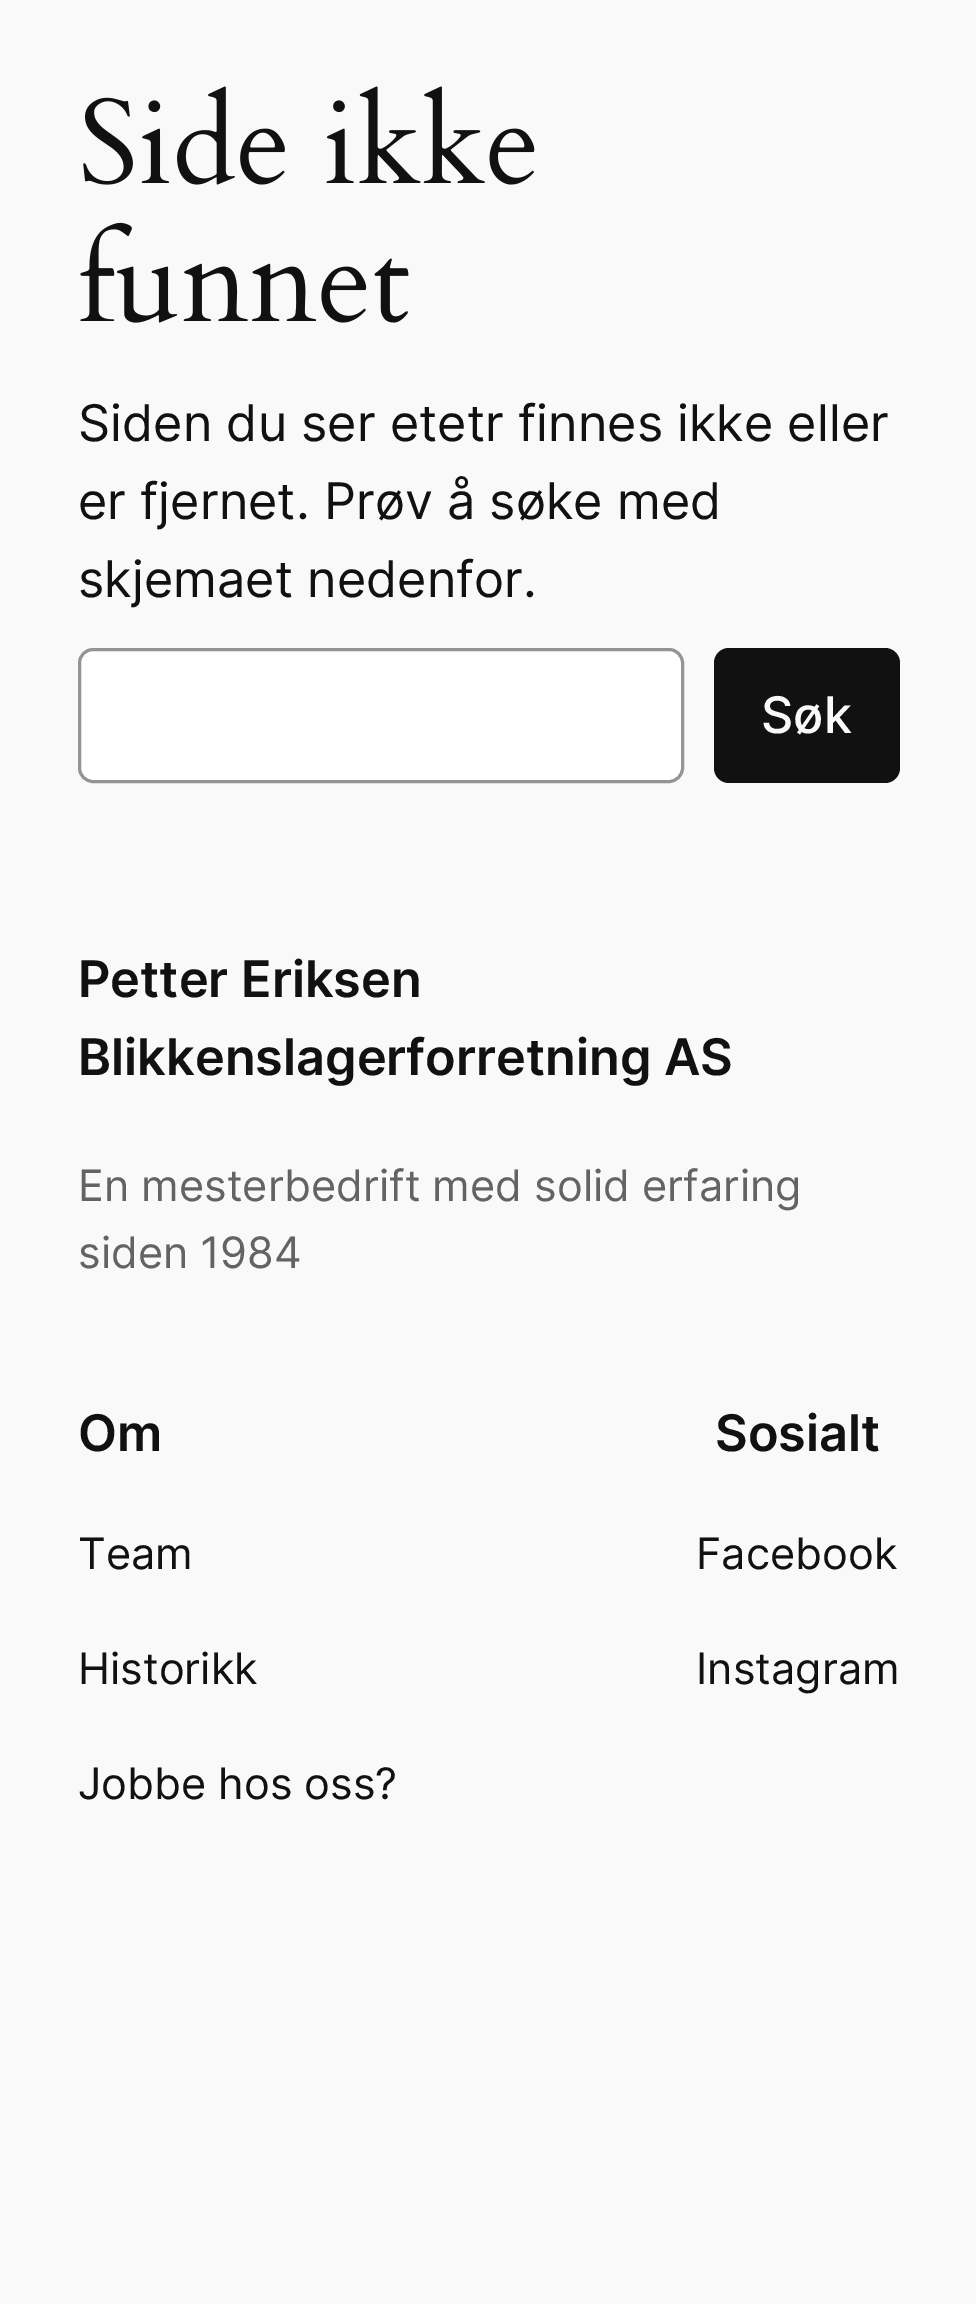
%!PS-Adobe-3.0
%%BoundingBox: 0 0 976 2304
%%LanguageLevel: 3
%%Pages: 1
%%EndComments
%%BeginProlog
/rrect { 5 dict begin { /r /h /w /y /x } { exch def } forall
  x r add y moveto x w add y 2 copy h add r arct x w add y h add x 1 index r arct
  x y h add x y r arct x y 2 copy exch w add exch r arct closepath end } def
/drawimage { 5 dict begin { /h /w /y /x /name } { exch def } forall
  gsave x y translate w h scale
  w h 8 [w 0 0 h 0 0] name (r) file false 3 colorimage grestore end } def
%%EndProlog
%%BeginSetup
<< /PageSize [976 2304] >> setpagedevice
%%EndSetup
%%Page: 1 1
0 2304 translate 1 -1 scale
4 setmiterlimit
0.976 setgray
0 0 976 2304 rectfill
(images/1.raw) 83 86 452 99 drawimage
(images/2.raw) 80 222 329 101 drawimage
1 setgray
79.5 649.5 603 132 13.5 rrect gsave fill grestore
0.58 setgray
3 setlinewidth
stroke
0.067 setgray
714 648 186 135 15 rrect fill
/Inter-Regular [50.4 0 0 -50.4 0 0] selectfont
78 441 moveto (Siden du ser etetr finnes ikke eller) show
78 519 moveto (er fjernet. Prøv å søke med) show
78 597 moveto (skjemaet nedenfor.) show
/Inter-Medium [50.4 0 0 -50.4 0 0] selectfont
0.976 setgray
761 733 moveto (Søk) show
/Inter-SemiBold [50.4 0 0 -50.4 0 0] selectfont
0.067 setgray
78 997 moveto (Petter Eriksen) show
78 1075 moveto (Blikkenslagerforretning AS) show
/Inter-Regular [43.25 0 0 -43.25 0 0] selectfont
0.388 setgray
78 1201 moveto (En mesterbedrift med solid erfaring) show
78 1268 moveto (siden 1984) show
/Inter-SemiBold [50.4 0 0 -50.4 0 0] selectfont
0.067 setgray
78 1451 moveto (Om) show
/Inter-Regular [43.25 0 0 -43.25 0 0] selectfont
78 1569 moveto (Team) show
78 1684 moveto (Historikk) show
78 1799 moveto (Jobbe hos oss?) show
/Inter-SemiBold [50.4 0 0 -50.4 0 0] selectfont
715 1451 moveto (Sosialt) show
/Inter-Regular [43.25 0 0 -43.25 0 0] selectfont
696 1569 moveto (Facebook) show
696 1684 moveto (Instagram) show
showpage
%%EOF
